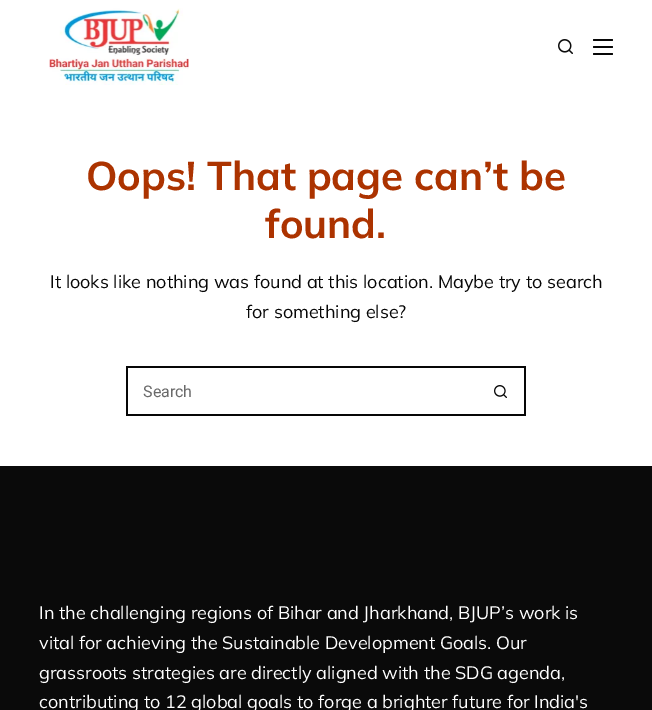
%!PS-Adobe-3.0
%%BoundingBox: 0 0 652 710
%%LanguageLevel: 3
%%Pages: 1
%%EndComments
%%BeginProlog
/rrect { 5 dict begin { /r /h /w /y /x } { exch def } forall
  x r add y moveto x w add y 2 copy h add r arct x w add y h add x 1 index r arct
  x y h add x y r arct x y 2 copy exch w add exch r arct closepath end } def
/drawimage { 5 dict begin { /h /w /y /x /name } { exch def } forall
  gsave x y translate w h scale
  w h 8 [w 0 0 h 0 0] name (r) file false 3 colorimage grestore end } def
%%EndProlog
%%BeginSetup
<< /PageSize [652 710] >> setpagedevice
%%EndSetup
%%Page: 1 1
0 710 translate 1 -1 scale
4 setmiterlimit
1 setgray
0 0 652 710 rectfill
(images/1.raw) 49 8 140 77 drawimage
(images/2.raw) 558 39 15 15 drawimage
0.027 setgray
593 39 20 2 1 rrect fill
593 46 20 2 1 rrect fill
593 53 20 2 1 rrect fill
126 366 400 2 rectfill
126 414 350 2 rectfill
126 366 2 50 rectfill
524 366 2 50 rectfill
476 414 50 2 rectfill
(images/3.raw) 494 385 13 13 drawimage
0.039 setgray
0 466 652 244 rectfill
/Mulish-Bold [40 0 0 -40 0 0] selectfont
0.675 0.2 0 setrgbcolor
86 190 moveto (Oops! That page can’t be) show
265 238 moveto (found.) show
/Mulish-Regular [18 0 0 -18 0 0] selectfont
0.027 setgray
50 288 moveto (It looks like nothing was found at this location. Maybe try to search) show
246 318 moveto (for something else?) show
/Roboto-Regular [16 0 0 -16 0 0] selectfont
0.416 setgray
143 397 moveto (Search) show
/Mulish-Regular [18 0 0 -18 0 0] selectfont
1 setgray
39 619 moveto (In the challenging regions of Bihar and Jharkhand, BJUP’s work is) show
39 649 moveto (vital for achieving the Sustainable Development Goals. Our) show
39 679 moveto (grassroots strategies are directly aligned with the SDG agenda,) show
39 708 moveto (contributing to 12 global goals to forge a brighter future for India's) show
showpage
%%EOF
